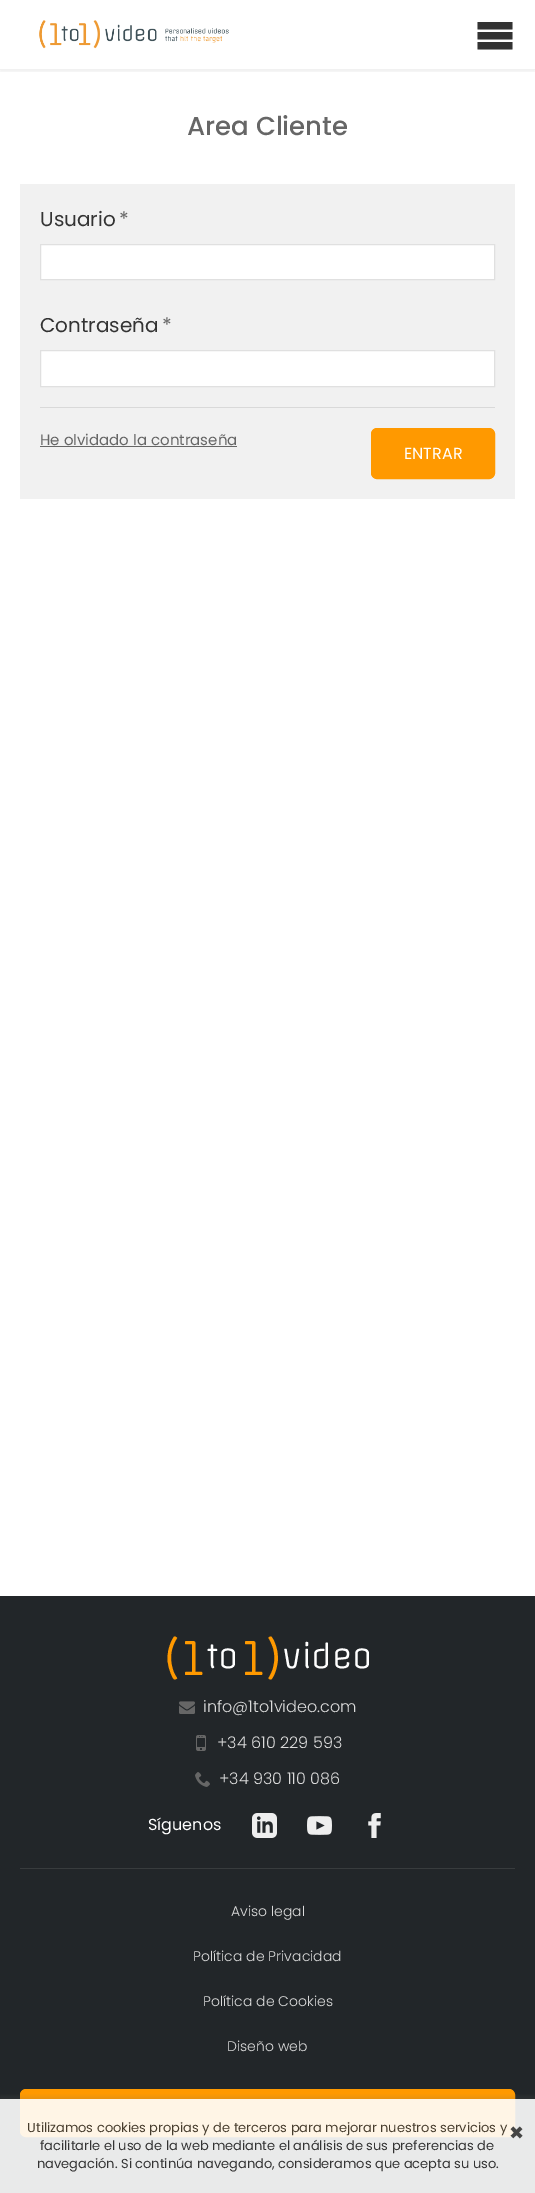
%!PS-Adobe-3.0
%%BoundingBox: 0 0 535 2193
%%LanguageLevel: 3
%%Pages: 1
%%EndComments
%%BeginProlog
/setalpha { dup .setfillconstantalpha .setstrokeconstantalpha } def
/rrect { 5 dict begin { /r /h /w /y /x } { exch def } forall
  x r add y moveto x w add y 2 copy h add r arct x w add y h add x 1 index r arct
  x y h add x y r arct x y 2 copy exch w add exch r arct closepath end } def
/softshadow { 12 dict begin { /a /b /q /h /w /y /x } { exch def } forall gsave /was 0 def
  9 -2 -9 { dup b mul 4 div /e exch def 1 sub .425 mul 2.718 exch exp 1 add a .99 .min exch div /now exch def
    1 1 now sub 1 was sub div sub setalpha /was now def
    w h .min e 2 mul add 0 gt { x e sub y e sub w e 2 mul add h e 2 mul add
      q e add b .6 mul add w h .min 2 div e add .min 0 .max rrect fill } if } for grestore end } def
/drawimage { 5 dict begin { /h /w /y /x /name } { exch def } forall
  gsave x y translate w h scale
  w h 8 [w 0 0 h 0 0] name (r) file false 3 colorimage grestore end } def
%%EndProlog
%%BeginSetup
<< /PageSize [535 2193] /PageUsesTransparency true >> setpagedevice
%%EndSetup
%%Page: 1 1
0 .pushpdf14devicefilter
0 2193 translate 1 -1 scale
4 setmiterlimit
1 setgray
0 0 535 2193 rectfill
gsave
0 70 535 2 rectclip
0 setgray
0 2 535 70 0 1 0.05 softshadow
grestore
0.945 setgray
0 69 535 1 rectfill
(images/1.raw) 39 20 190 29 drawimage
0.2 setgray
newpath 477.5 22 moveto 512.5 22 lineto 512.5 29.5 lineto 477.5 29.5 lineto closepath 477.5 32 moveto 512.5 32 lineto 512.5 39.5 lineto 477.5 39.5 lineto closepath 477.5 42 moveto 512.5 42 lineto 512.5 49.5 lineto 477.5 49.5 lineto closepath fill
0.945 setgray
20 184 495 315 rectfill
0.851 setgray
40 407 455 1 rectfill
1 setgray
newpath 40.5 244.5 moveto 494.5 244.5 lineto 494.5 279.5 lineto 40.5 279.5 lineto closepath gsave fill grestore
0.878 setgray
stroke
1 setgray
newpath 40.5 350.5 moveto 494.5 350.5 lineto 494.5 386.5 lineto 40.5 386.5 lineto closepath gsave fill grestore
0.878 setgray
stroke
0.4 setgray
40 446 197 1 rectfill
1 0.6 0 setrgbcolor
371.5 428.5 123 50 5.5 rrect gsave fill grestore
stroke
0.133 0.149 0.161 setrgbcolor
0 1596 535 597 rectfill
(images/2.raw) 179 1701 16 13 drawimage
(images/3.raw) 196 1735 10 16 drawimage
(images/4.raw) 195 1772 15 15 drawimage
(images/5.raw) 252 1813 25 25 drawimage
(images/6.raw) 307 1816 25 19 drawimage
(images/7.raw) 368 1813 13 25 drawimage
0.22 0.235 0.243 setrgbcolor
20 1868 495 1 rectfill
1 0.6 0 setrgbcolor
20.5 2089.5 494 47 5.5 rrect gsave fill grestore
stroke
gsave
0 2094 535 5 rectclip
0.4 setgray
0 2097 535 94 0 2.5 0.18 softshadow
grestore
0.9 setalpha
1 setgray
0 2099 535 94 rectfill
/Poppins-Medium [26 0 0 -26 0 0] selectfont
1 setalpha
0.4 setgray
187 135 moveto (Area Cliente) show
/Poppins-Regular [20 0 0 -20 0 0] selectfont
0.2 setgray
40 226 moveto (Usuario) show
0.4 setgray
119 226 moveto (*) show
0.2 setgray
40 332 moveto (Contraseña) show
0.4 setgray
162 332 moveto (*) show
/Poppins-Regular [15 0 0 -15 0 0] selectfont
40 445 moveto (He olvidado la contraseña) show
/Poppins-Regular [16 0 0 -16 0 0] selectfont
1 setgray
404 459 moveto (ENTRAR) show
/Offside-Regular [46 0 0 -46 0 0] selectfont
1 0.6 0 setrgbcolor
162 1675 moveto (\(1) show
/Offside-Regular [32 0 0 -32 0 0] selectfont
1 setgray
206 1668 moveto (to) show
/Offside-Regular [46 0 0 -46 0 0] selectfont
1 0.6 0 setrgbcolor
239 1675 moveto (1\)) show
/Offside-Regular [32 0 0 -32 0 0] selectfont
1 setgray
282 1668 moveto (video) show
/Poppins-Light [16 0 0 -16 0 0] selectfont
0.859 setgray
203 1712 moveto (info@1to1video.com) show
217 1748 moveto (+34 610 229 593) show
219 1784 moveto (+34 930 110 086) show
/Poppins-Regular [16 0 0 -16 0 0] selectfont
1 setgray
148 1830 moveto (Síguenos) show
/Poppins-Light [14 0 0 -14 0 0] selectfont
0.859 setgray
231 1916 moveto (Aviso legal) show
193 1961 moveto (Política de Privacidad) show
203 2006 moveto (Política de Cookies) show
227 2051 moveto (Diseño web) show
/Poppins-Regular [13 0 0 -13 0 0] selectfont
0.278 0.239 0.18 setrgbcolor
27 2132 moveto (Utilizamos cookies propias y de terceros para mejorar nuestros servicios y) show
0.2 setgray
40 2150 moveto (facilitarle el uso de la web mediante el análisis de sus preferencias de) show
37 2168 moveto (navegación. Si continúa navegando, consideramos que acepta su uso.) show
/DejaVuSans-Regular [18 0 0 -18 0 0] selectfont
0.275 0.275 0.271 setrgbcolor
509 2139 moveto (✖) show
.poppdf14devicefilter showpage
%%EOF
